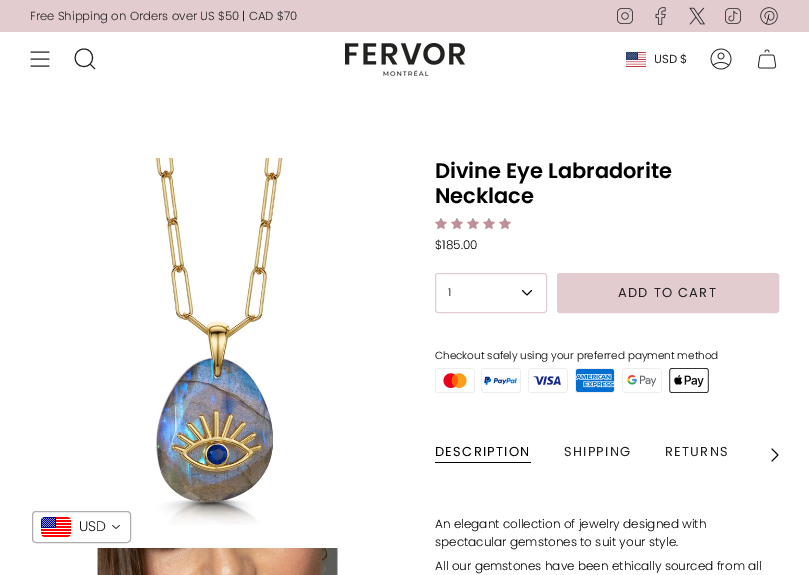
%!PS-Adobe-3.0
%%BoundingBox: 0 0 809 575
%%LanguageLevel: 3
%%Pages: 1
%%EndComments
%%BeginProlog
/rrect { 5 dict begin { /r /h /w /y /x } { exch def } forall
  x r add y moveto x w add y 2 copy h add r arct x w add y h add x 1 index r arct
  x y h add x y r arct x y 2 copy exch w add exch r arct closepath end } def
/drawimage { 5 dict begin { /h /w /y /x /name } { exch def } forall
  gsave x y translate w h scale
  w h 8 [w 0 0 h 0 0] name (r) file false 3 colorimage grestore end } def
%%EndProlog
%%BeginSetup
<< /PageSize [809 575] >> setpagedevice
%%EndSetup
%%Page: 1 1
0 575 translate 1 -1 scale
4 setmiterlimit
1 setgray
0 0 809 575 rectfill
0.89 0.8 0.816 setrgbcolor
0 0 809 32 rectfill
(images/1.raw) 617 8 16 16 drawimage
(images/2.raw) 655 7 11 18 drawimage
(images/3.raw) 689 7 16 18 drawimage
(images/4.raw) 725 8 16 16 drawimage
(images/5.raw) 760 7 18 18 drawimage
0.129 setgray
1 setlinecap
1 setlinejoin
newpath 31 52 moveto 49 52 lineto 31 59 moveto 49 59 lineto 31 66 moveto 49 66 lineto stroke
0 setlinecap
0 setlinejoin
newpath 84 49 moveto 95.5 49 95.5 67 83.5 66.5 curveto 72 66 72.5 49 84 49 curveto closepath 90 64 moveto 95 69 lineto stroke
(images/6.raw) 345 43 120 33 drawimage
(images/7.raw) 626 52 20 15 drawimage
(images/8.raw) 710 48 22 22 drawimage
(images/9.raw) 757 49 20 20 drawimage
(images/10.raw) 155 158 129 367 drawimage
(images/11.raw) 97 548 241 27 drawimage
(images/12.raw) 435 218 12 12 drawimage
(images/12.raw) 451 218 12 12 drawimage
(images/12.raw) 467 218 12 12 drawimage
(images/12.raw) 483 218 12 12 drawimage
(images/12.raw) 499 218 12 12 drawimage
0.89 0.8 0.816 setrgbcolor
435.5 273.5 111 39 2.5 rrect stroke
0 setgray
0.8 setlinewidth
1 setlinecap
1 setlinejoin
newpath 522.5 290.5 moveto 527 295 lineto 531.5 290.5 lineto stroke
0.89 0.8 0.816 setrgbcolor
557.5 273.5 221 39 2.5 rrect gsave fill grestore
1 setlinewidth
0 setlinecap
0 setlinejoin
stroke
(images/13.raw) 435 368 40 25 drawimage
(images/14.raw) 481 368 40 25 drawimage
(images/15.raw) 528 368 40 25 drawimage
(images/16.raw) 575 368 40 25 drawimage
(images/17.raw) 622 368 40 25 drawimage
(images/18.raw) 669 368 40 25 drawimage
0 setgray
435 462 96 1 rectfill
1 setlinecap
1 setlinejoin
newpath 772 449 moveto 778 455 lineto 772 461 lineto stroke
0.682 setgray
0 setlinecap
0 setlinejoin
32.5 511.5 98 31 3.5 rrect stroke
(images/19.raw) 41 517 30 20 drawimage
(images/20.raw) 112 525 8 4 drawimage
/Poppins-Light [11.7 0 0 -11.7 0 0] selectfont
0.129 setgray
30 20 moveto (Free Shipping on Orders over US $50 | CAD $70) show
/Poppins-Regular [11.7 0 0 -11.7 0 0] selectfont
654 63 moveto (USD $) show
/Poppins-SemiBold [21 0 0 -21 0 0] selectfont
0 setgray
435 178 moveto (Divine Eye Labradorite) show
435 203 moveto (Necklace) show
/Poppins-Light [12 0 0 -12 0 0] selectfont
435 249 moveto ($185.00) show
/Poppins-Regular [10.4 0 0 -10.4 0 0] selectfont
448 296 moveto (1) show
/Poppins-Regular [13 0 0 -13 0 0] selectfont
0.129 setgray
618 297 moveto 1.25 0 (ADD TO CART) ashow
/Poppins-Light [10.4 0 0 -10.4 0 0] selectfont
0 setgray
435 359 moveto (Checkout safely using your preferred payment method) show
/Poppins-Regular [13 0 0 -13 0 0] selectfont
435 456 moveto 1.25 0 (DESCRIPTION) ashow
0.129 setgray
564 456 moveto 1.25 0 (SHIPPING) ashow
665 456 moveto 1.25 0 (RETURNS) ashow
/Poppins-Light [12 0 0 -12 0 0] selectfont
0 setgray
435 528 moveto (An elegant collection of jewelry designed with) show
435 546 moveto (spectacular gemstones to suit your style.) show
435 570 moveto (All our gemstones have been ethically sourced from all) show
/Poppins-Light [14 0 0 -14 0 0] selectfont
0.067 setgray
79 531 moveto (USD) show
showpage
%%EOF
